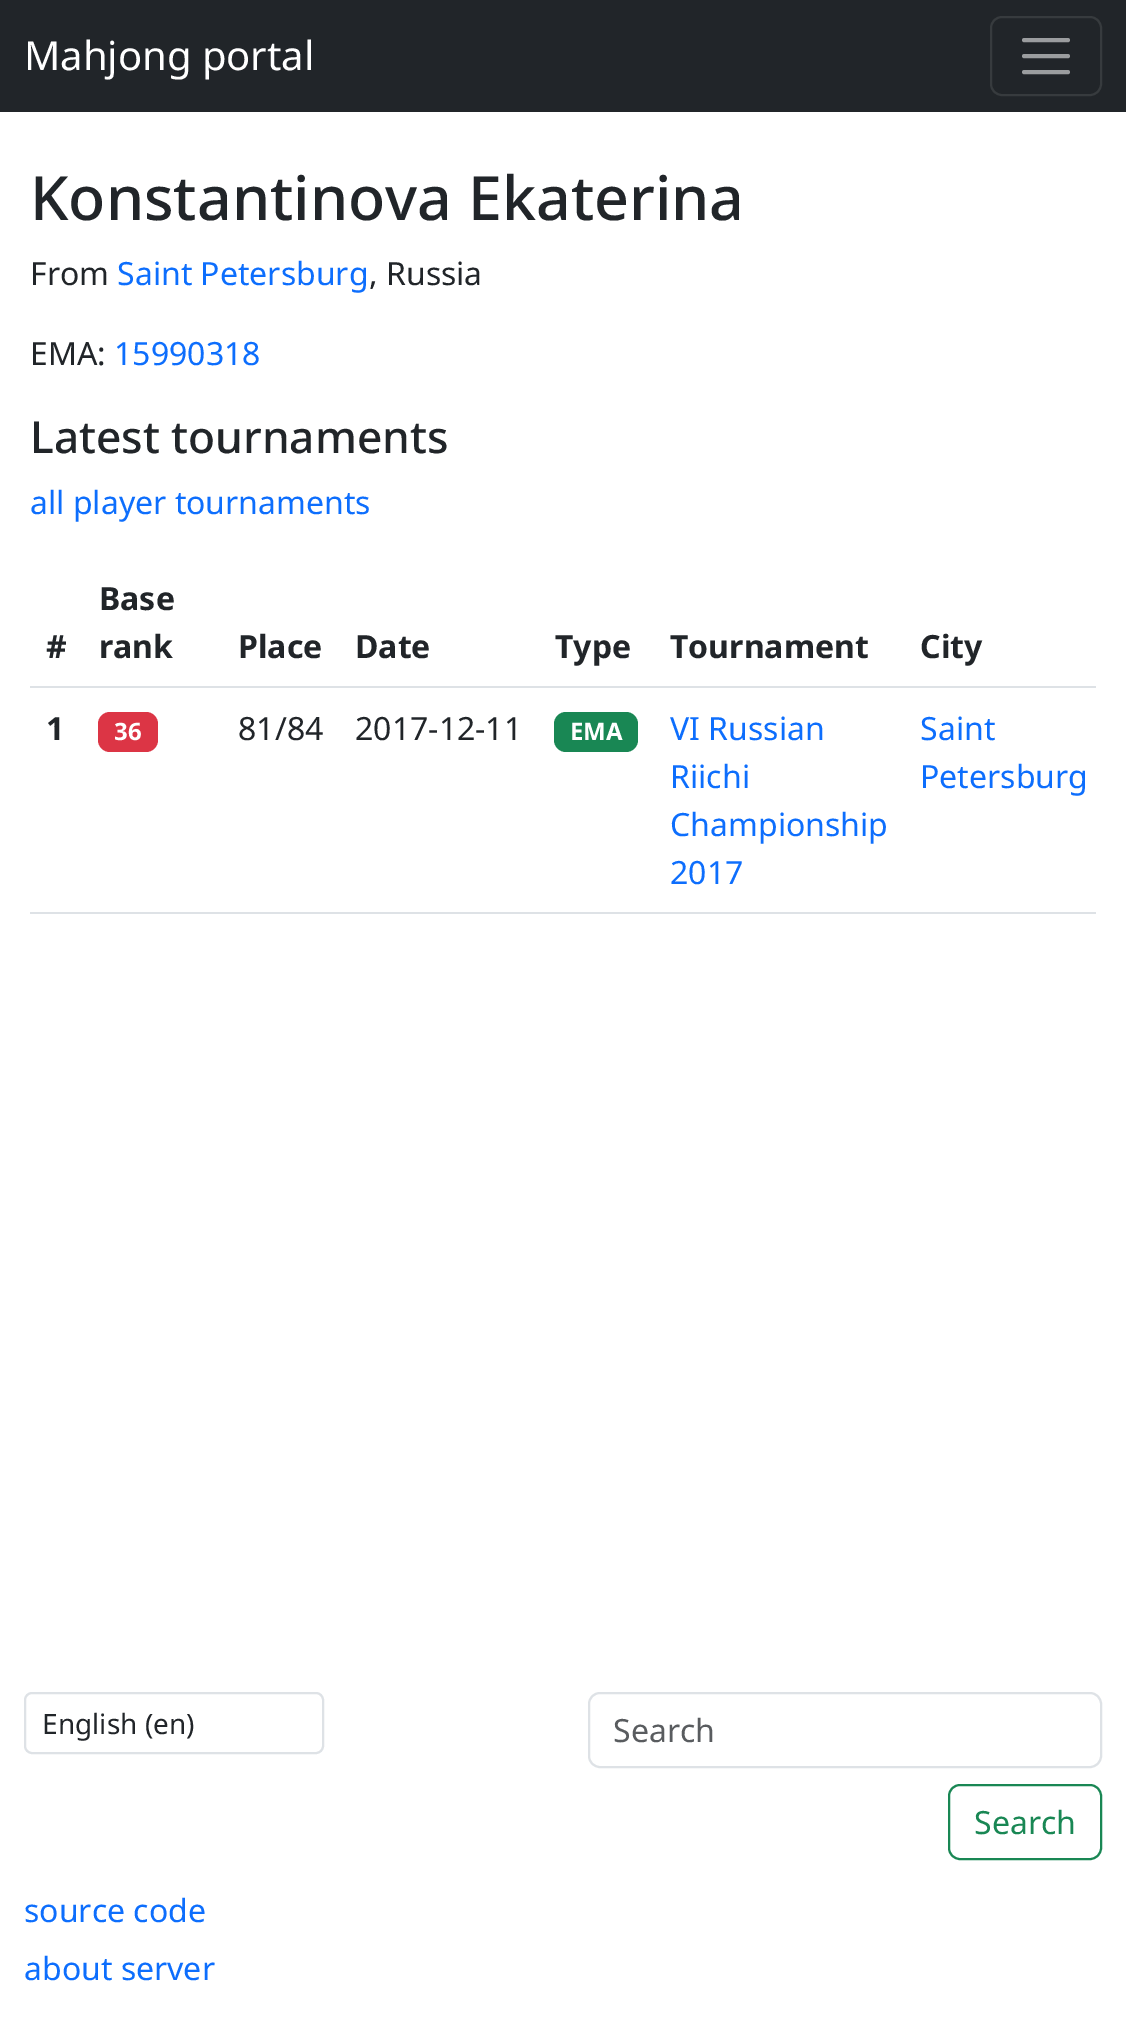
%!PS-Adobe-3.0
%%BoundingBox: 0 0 1126 2023
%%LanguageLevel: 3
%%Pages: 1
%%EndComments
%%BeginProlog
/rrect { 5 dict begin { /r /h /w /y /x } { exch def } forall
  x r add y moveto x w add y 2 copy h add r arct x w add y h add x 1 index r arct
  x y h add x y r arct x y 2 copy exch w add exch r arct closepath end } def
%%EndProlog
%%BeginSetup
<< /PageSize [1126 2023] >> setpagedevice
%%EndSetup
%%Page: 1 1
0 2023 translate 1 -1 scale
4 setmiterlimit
1 setgray
0 0 1126 2023 rectfill
0.129 0.145 0.161 setrgbcolor
0 0 1126 112 rectfill
0.216 0.231 0.243 setrgbcolor
2 setlinewidth
991 17 110 78 11 rrect stroke
0.608 0.616 0.624 setrgbcolor
4 setlinewidth
1 setlinecap
newpath 1024 40 moveto 1068 40 lineto 1024 56 moveto 1068 56 lineto 1024 72 moveto 1068 72 lineto stroke
0.871 0.886 0.902 setrgbcolor
30 686 1066 2 rectfill
0.863 0.208 0.271 setrgbcolor
98 712 60 40 12 rrect fill
0.098 0.529 0.329 setrgbcolor
554 712 84 40 12 rrect fill
0.871 0.886 0.902 setrgbcolor
30 912 1066 2 rectfill
2 setlinewidth
0 setlinecap
25 1693 298 60 7 rrect stroke
589 1693 512 74 11 rrect stroke
0.098 0.529 0.329 setrgbcolor
949 1785 152 74 11 rrect stroke
/NotoSans-Regular [40 0 0 -40 0 0] selectfont
1 setgray
24 70 moveto (Mahjong portal) show
/NotoSans-Medium [60.9 0 0 -60.9 0 0] selectfont
0.129 0.145 0.161 setrgbcolor
30 220 moveto (Konstantinova Ekaterina) show
/NotoSans-Regular [32 0 0 -32 0 0] selectfont
30 285 moveto (From) show
0.051 0.431 0.992 setrgbcolor
117 285 moveto (Saint Petersburg) show
0.129 0.145 0.161 setrgbcolor
369 285 moveto (, Russia) show
30 365 moveto (EMA:) show
0.051 0.431 0.992 setrgbcolor
114 365 moveto (15990318) show
/NotoSans-Medium [44.25 0 0 -44.25 0 0] selectfont
0.129 0.145 0.161 setrgbcolor
30 453 moveto (Latest tournaments) show
/NotoSans-Regular [32 0 0 -32 0 0] selectfont
0.051 0.431 0.992 setrgbcolor
30 514 moveto (all player tournaments) show
/NotoSans-Bold [32 0 0 -32 0 0] selectfont
0.129 0.145 0.161 setrgbcolor
46 658 moveto (#) show
99 610 moveto (Base) show
99 658 moveto (rank) show
238 658 moveto (Place) show
355 658 moveto (Date) show
555 658 moveto (Type) show
670 658 moveto (Tournament) show
920 658 moveto (City) show
46 740 moveto (1) show
/NotoSans-Bold [24 0 0 -24 0 0] selectfont
1 setgray
114 740 moveto (36) show
/NotoSans-Regular [32 0 0 -32 0 0] selectfont
0.129 0.145 0.161 setrgbcolor
238 740 moveto (81/84) show
355 740 moveto (2017-12-11) show
/NotoSans-Bold [24 0 0 -24 0 0] selectfont
1 setgray
570 740 moveto (EMA) show
/NotoSans-Regular [32 0 0 -32 0 0] selectfont
0.051 0.431 0.992 setrgbcolor
670 740 moveto (VI Russian) show
670 788 moveto (Riichi) show
670 836 moveto (Championship) show
670 884 moveto (2017) show
920 740 moveto (Saint) show
920 788 moveto (Petersburg) show
/NotoSans-Regular [28 0 0 -28 0 0] selectfont
0.129 0.145 0.161 setrgbcolor
42 1734 moveto (English \(en\)) show
/NotoSans-Regular [32 0 0 -32 0 0] selectfont
0.349 0.361 0.373 setrgbcolor
613 1742 moveto (Search) show
0.098 0.529 0.329 setrgbcolor
974 1834 moveto (Search) show
0.051 0.431 0.992 setrgbcolor
24 1922 moveto (source code) show
24 1980 moveto (about server) show
showpage
%%EOF
